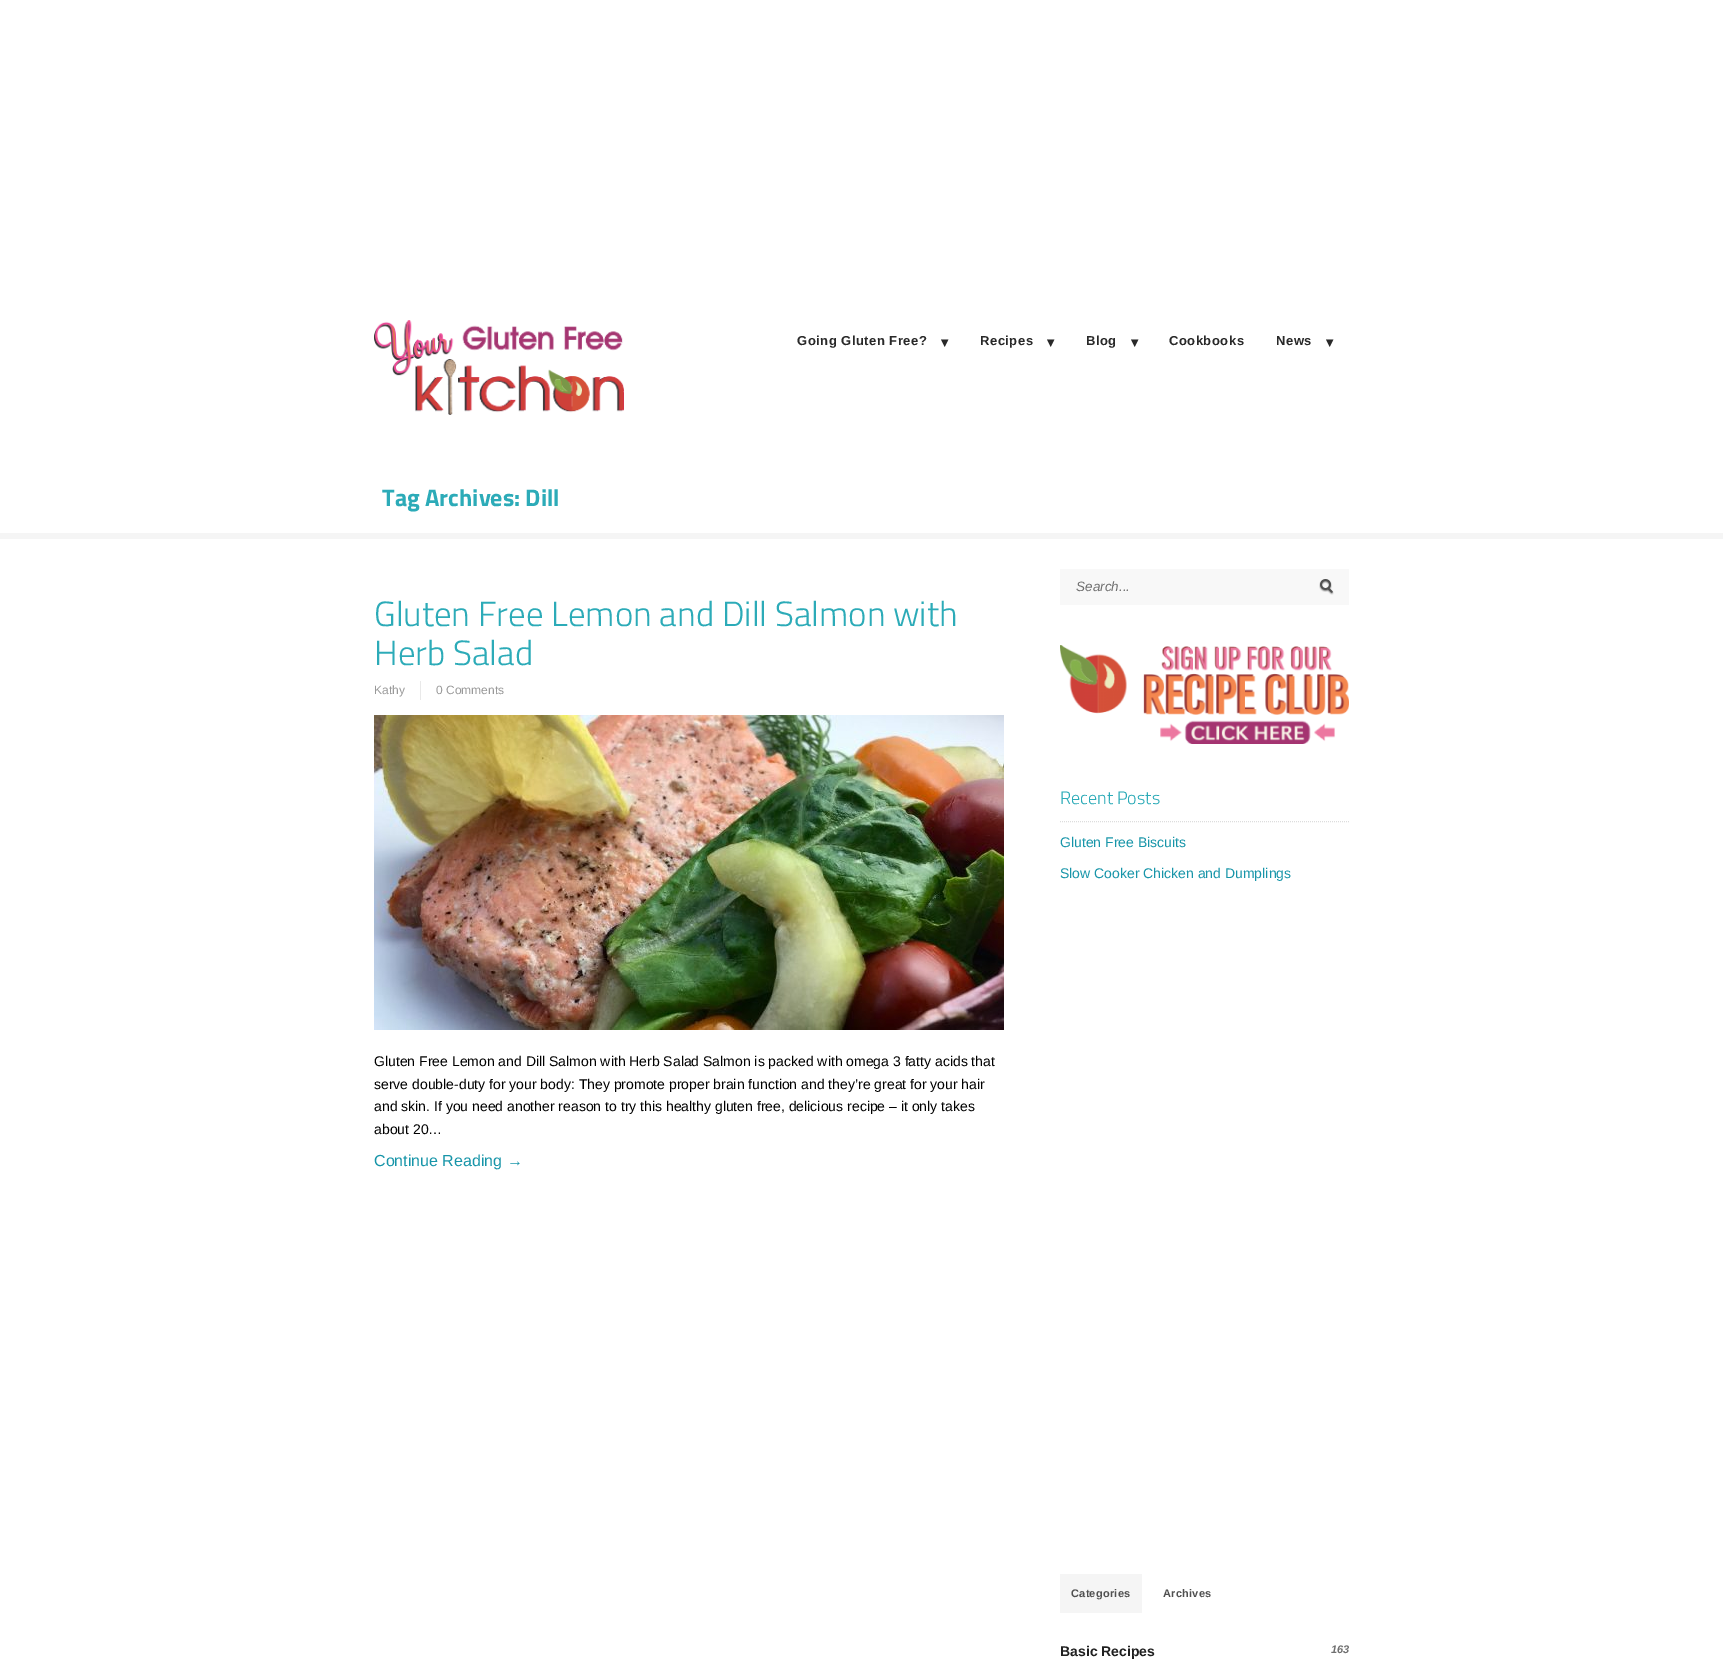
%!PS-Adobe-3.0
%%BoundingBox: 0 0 1723 1669
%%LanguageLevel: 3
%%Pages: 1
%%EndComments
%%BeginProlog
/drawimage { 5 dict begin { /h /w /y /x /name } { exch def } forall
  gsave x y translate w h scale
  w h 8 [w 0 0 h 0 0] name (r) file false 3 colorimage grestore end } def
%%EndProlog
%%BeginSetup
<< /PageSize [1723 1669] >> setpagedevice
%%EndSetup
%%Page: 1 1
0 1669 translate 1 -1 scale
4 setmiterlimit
1 setgray
0 0 1723 1669 rectfill
(images/1.raw) 374 320 250 95 drawimage
0.961 setgray
0 533 1723 6 rectfill
0.914 setgray
420 681 1 19 rectfill
(images/2.raw) 374 715 630 315 drawimage
0.973 setgray
1060 569 289 36 rectfill
(images/3.raw) 1319 579 15 16 drawimage
(images/4.raw) 1060 645 289 99 drawimage
0.867 setgray
[1 1] 0 setdash
newpath 1060 821.5 moveto 1349 821.5 lineto stroke
0.961 setgray
1060 1574 82 39 rectfill
/LiberationSans-Bold [13 0 0 -13 0 0] selectfont
0.161 setgray
797 345 moveto 0.5 0 (Going Gluten Free?) ashow
/DejaVuSans-Bold [14 0 0 -14 0 0] selectfont
941 347 moveto 0.5 0 (▾) ashow
/LiberationSans-Bold [13 0 0 -13 0 0] selectfont
980 345 moveto 0.5 0 (Recipes) ashow
/DejaVuSans-Bold [14 0 0 -14 0 0] selectfont
1047 347 moveto 0.5 0 (▾) ashow
/LiberationSans-Bold [13 0 0 -13 0 0] selectfont
1086 345 moveto 0.5 0 (Blog) ashow
/DejaVuSans-Bold [14 0 0 -14 0 0] selectfont
1131 347 moveto 0.5 0 (▾) ashow
/LiberationSans-Bold [13 0 0 -13 0 0] selectfont
1169 345 moveto 0.5 0 (Cookbooks) ashow
1276 345 moveto 0.5 0 (News) ashow
/DejaVuSans-Bold [14 0 0 -14 0 0] selectfont
1326 347 moveto 0.5 0 (▾) ashow
/TitilliumWeb-Bold [24 0 0 -24 0 0] selectfont
0.173 0.671 0.722 setrgbcolor
382 506 moveto (Tag Archives: Dill) show
/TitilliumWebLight-Light [35 0 0 -35 0 0] selectfont
374 626 moveto (Gluten Free Lemon and Dill Salmon with) show
374 665 moveto (Herb Salad) show
/LiberationSans-Regular [12 0 0 -12 0 0] selectfont
0.6 setgray
374 694 moveto (Kathy) show
436 694 moveto (0 Comments) show
/LiberationSans-Regular [14 0 0 -14 0 0] selectfont
0 setgray
374 1066 moveto (Gluten Free Lemon and Dill Salmon with Herb Salad Salmon is packed with omega 3 fatty acids that) show
374 1089 moveto (serve double-duty for your body: They promote proper brain function and they’re great for your hair) show
374 1111 moveto (and skin. If you need another reason to try this healthy gluten free, delicious recipe – it only takes) show
374 1134 moveto (about 20…) show
/LiberationSans-Regular [16 0 0 -16 0 0] selectfont
0.09 0.584 0.663 setrgbcolor
374 1166 moveto (Continue Reading →) show
/LiberationSans-Italic [13.5 0 0 -13.5 0 0] selectfont
0.439 setgray
1076 591 moveto (Search...) show
/TitilliumWebLight-Light [18 0 0 -18 0 0] selectfont
0.173 0.671 0.722 setrgbcolor
1060 804 moveto (Recent Posts) show
/LiberationSans-Regular [14 0 0 -14 0 0] selectfont
0.09 0.584 0.663 setrgbcolor
1060 847 moveto (Gluten Free Biscuits) show
1060 878 moveto (Slow Cooker Chicken and Dumplings) show
/LiberationSans-Bold [11 0 0 -11 0 0] selectfont
0.314 setgray
1071 1597 moveto 0.25 0 (Categories) ashow
1163 1597 moveto 0.25 0 (Archives) ashow
/LiberationSans-Bold [14 0 0 -14 0 0] selectfont
0.125 setgray
1060 1656 moveto (Basic Recipes) show
/LiberationSans-BoldItalic [11 0 0 -11 0 0] selectfont
0.439 setgray
1331 1653 moveto (163) show
showpage
%%EOF
